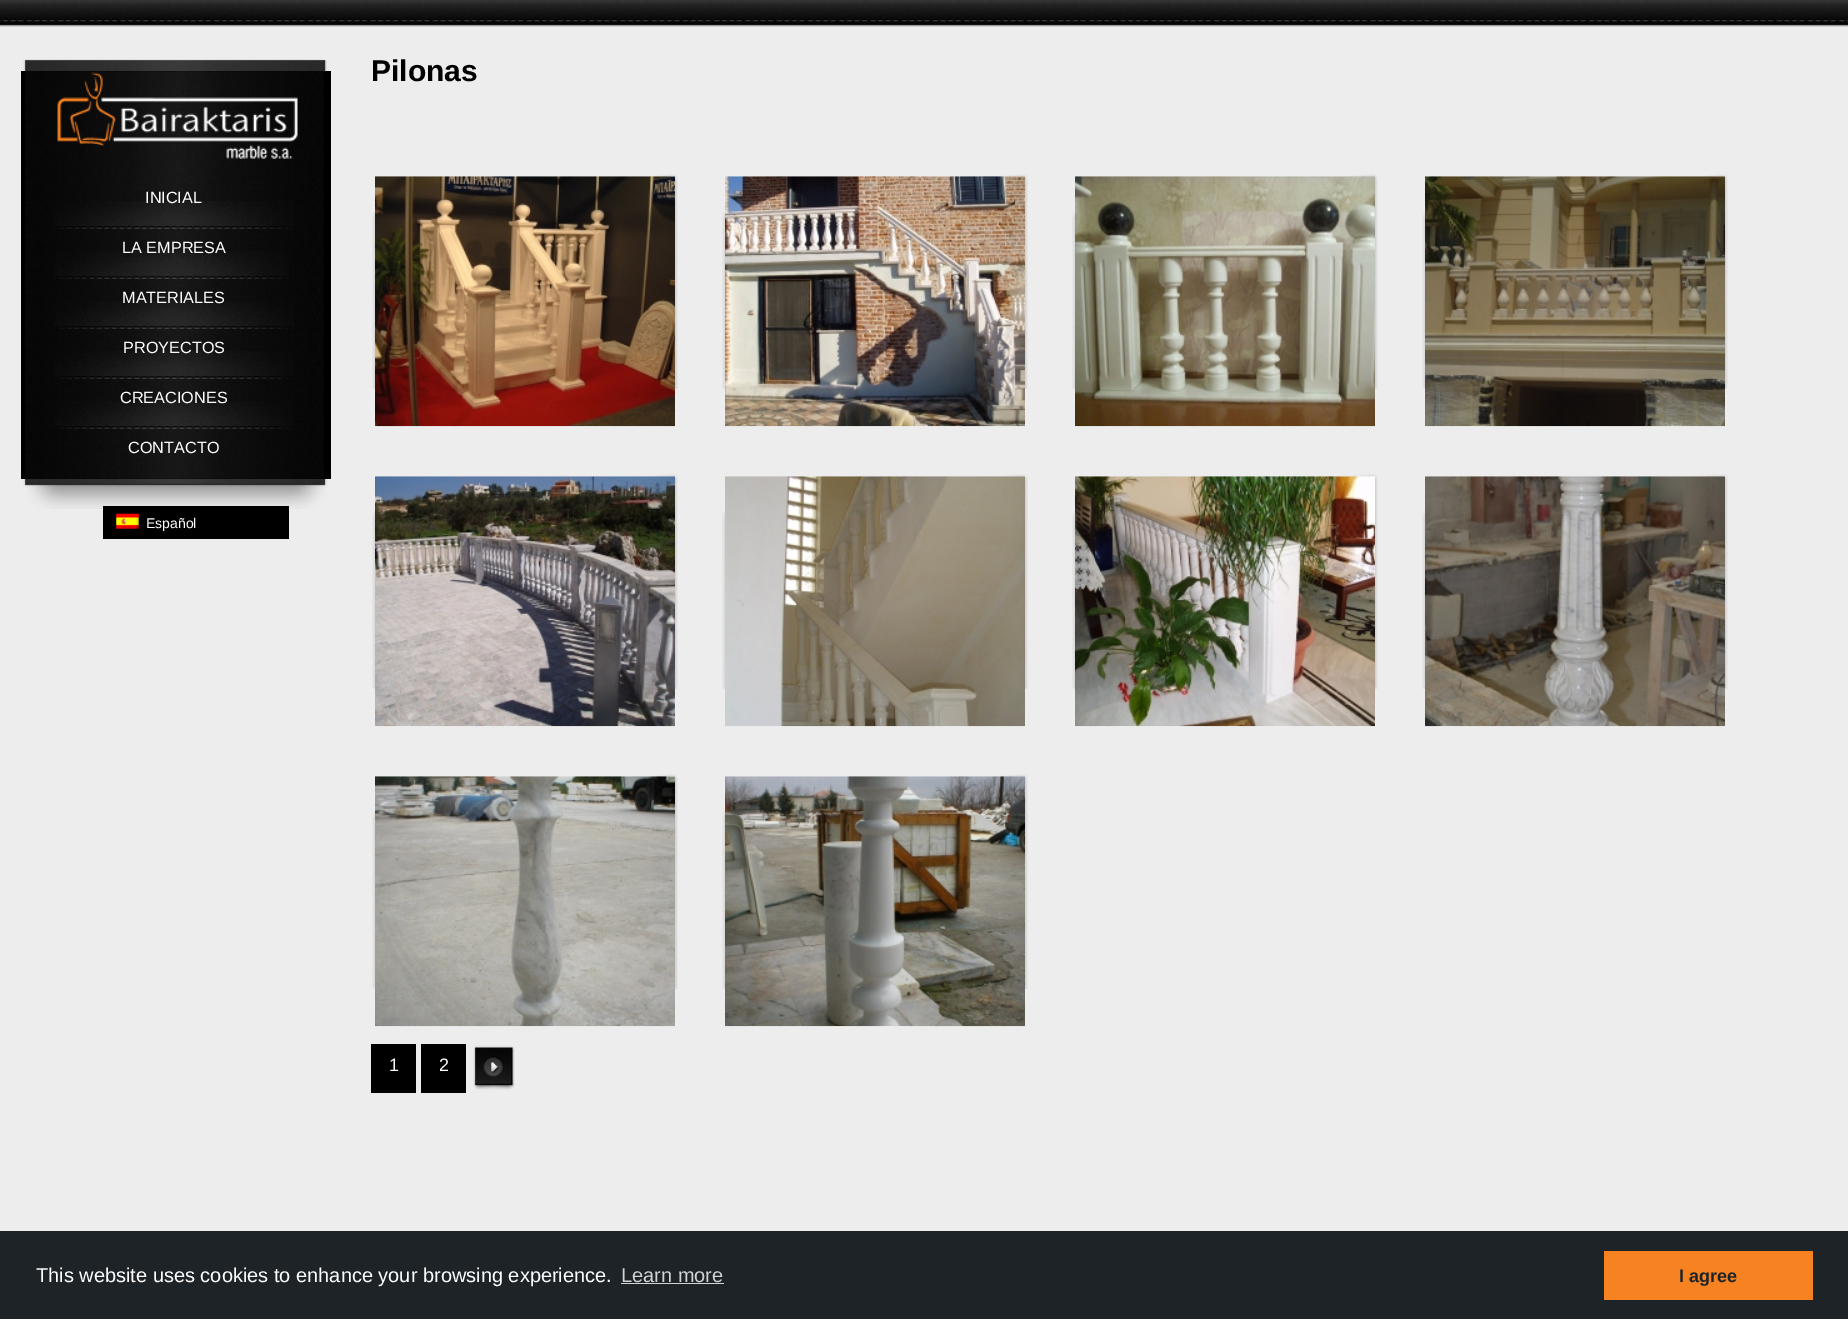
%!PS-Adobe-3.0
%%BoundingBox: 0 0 1848 1319
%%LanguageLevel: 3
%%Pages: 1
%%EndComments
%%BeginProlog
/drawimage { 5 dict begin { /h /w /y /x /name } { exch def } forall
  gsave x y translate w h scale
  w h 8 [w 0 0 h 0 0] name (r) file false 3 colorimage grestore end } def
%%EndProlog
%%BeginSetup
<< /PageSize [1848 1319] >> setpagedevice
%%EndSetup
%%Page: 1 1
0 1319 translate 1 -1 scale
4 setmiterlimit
0.929 setgray
0 0 1848 1319 rectfill
(images/1.raw) 0 0 1848 27 drawimage
(images/2.raw) 23 59 304 12 drawimage
0 setgray
21 71 310 408 rectfill
(images/3.raw) 25 71 299 408 drawimage
(images/4.raw) 57 72 241 87 drawimage
(images/5.raw) 53 201 241 28 drawimage
(images/6.raw) 53 251 236 28 drawimage
(images/7.raw) 53 301 241 28 drawimage
(images/8.raw) 53 351 241 28 drawimage
(images/9.raw) 53 401 241 28 drawimage
(images/10.raw) 23 479 305 30 drawimage
103 506 186 33 rectfill
(images/11.raw) 116 513 23 16 drawimage
(images/12.raw) 372 174 306 215 drawimage
(images/13.raw) 375 176 300 251 drawimage
(images/14.raw) 722 174 306 215 drawimage
(images/15.raw) 725 176 300 251 drawimage
(images/16.raw) 1072 174 306 215 drawimage
(images/17.raw) 1075 176 300 251 drawimage
(images/18.raw) 1422 174 306 215 drawimage
(images/19.raw) 1425 176 300 251 drawimage
(images/12.raw) 372 474 306 215 drawimage
(images/20.raw) 375 476 300 251 drawimage
(images/14.raw) 722 474 306 215 drawimage
(images/21.raw) 725 476 300 251 drawimage
(images/16.raw) 1072 474 306 215 drawimage
(images/22.raw) 1075 476 300 251 drawimage
(images/18.raw) 1422 474 306 215 drawimage
(images/23.raw) 1425 476 300 251 drawimage
(images/24.raw) 372 774 306 215 drawimage
(images/25.raw) 375 776 300 251 drawimage
(images/26.raw) 722 774 306 215 drawimage
(images/27.raw) 725 776 300 251 drawimage
371 1044 45 49 rectfill
421 1044 45 49 rectfill
(images/28.raw) 473 1045 42 45 drawimage
(images/29.raw) 483 1056 20 21 drawimage
0.118 0.137 0.153 setrgbcolor
0 1231 1848 88 rectfill
0.824 0.827 0.831 setrgbcolor
621 1283 103 1 rectfill
0.965 0.51 0.129 setrgbcolor
1604 1251 209 49 rectfill
/LiberationSans-Bold [30 0 0 -30 0 0] selectfont
0 setgray
371 81 moveto (Pilonas) show
/LiberationSans-Regular [16.25 0 0 -16.25 0 0] selectfont
1 setgray
145 203 moveto (INICIAL) show
122 253 moveto (LA EMPRESA) show
122 303 moveto (MATERIALES) show
123 353 moveto (PROYECTOS) show
120 403 moveto (CREACIONES) show
128 453 moveto (CONTACTO) show
/LiberationSans-Regular [14 0 0 -14 0 0] selectfont
146 528 moveto (Español) show
/LiberationSans-Regular [18 0 0 -18 0 0] selectfont
389 1071 moveto (1) show
439 1071 moveto (2) show
/LiberationSans-Regular [20 0 0 -20 0 0] selectfont
36 1282 moveto (This website uses cookies to enhance your browsing experience.) show
0.824 0.827 0.831 setrgbcolor
621 1282 moveto (Learn more) show
/LiberationSans-Bold [18 0 0 -18 0 0] selectfont
0.118 0.137 0.153 setrgbcolor
1679 1282 moveto (I agree) show
showpage
%%EOF
